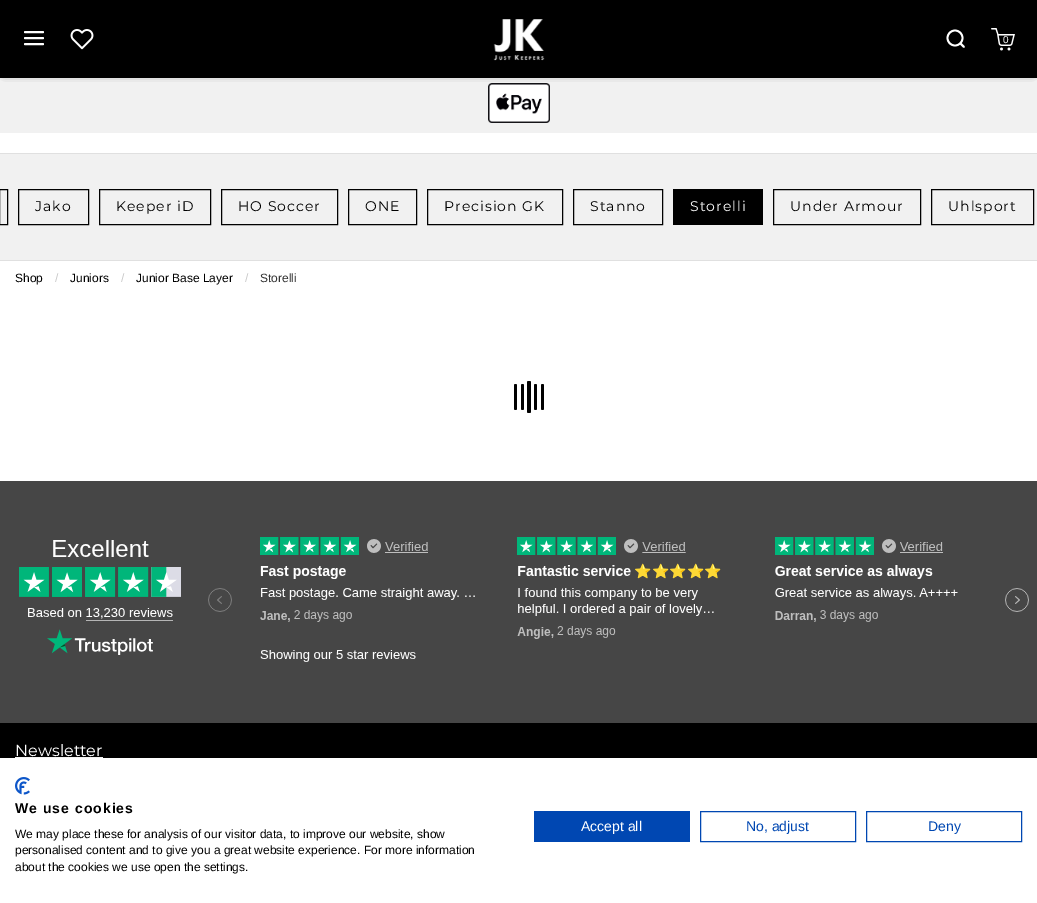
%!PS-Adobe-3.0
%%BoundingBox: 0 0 1037 903
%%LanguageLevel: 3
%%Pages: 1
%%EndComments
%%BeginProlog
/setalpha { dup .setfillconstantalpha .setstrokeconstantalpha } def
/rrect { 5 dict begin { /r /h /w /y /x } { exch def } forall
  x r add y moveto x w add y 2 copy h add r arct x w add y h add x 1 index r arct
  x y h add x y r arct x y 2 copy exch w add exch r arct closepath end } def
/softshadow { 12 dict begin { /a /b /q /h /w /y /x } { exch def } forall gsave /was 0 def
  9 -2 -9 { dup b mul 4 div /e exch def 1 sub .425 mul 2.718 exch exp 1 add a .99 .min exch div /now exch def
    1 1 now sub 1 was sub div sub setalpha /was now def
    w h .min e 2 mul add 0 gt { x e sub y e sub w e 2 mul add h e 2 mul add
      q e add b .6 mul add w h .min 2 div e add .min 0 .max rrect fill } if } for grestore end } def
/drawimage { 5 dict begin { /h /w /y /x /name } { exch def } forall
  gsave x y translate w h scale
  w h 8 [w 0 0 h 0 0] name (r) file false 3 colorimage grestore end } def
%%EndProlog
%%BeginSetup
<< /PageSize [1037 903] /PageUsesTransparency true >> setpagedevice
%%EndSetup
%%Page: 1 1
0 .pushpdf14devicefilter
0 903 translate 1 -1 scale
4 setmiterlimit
1 setgray
0 0 1037 903 rectfill
0.945 setgray
0 78 1037 55 rectfill
0 setgray
5 5 1027 68 0 4 1 softshadow
0 0 1037 78 rectfill
1 setgray
2 setlinewidth
1 setlinecap
1 setlinejoin
newpath 25 38 moveto 43 38 lineto 25 32 moveto 43 32 lineto 25 44 moveto 43 44 lineto stroke
(images/1.raw) 70 29 24 21 drawimage
(images/2.raw) 493 19 52 42 drawimage
1.8 setlinewidth
0 setlinecap
0 setlinejoin
newpath 955 38 7.5 0 360 arc closepath stroke
1 setlinecap
1 setlinejoin
newpath 964 47 moveto 960.5 43.5 lineto stroke
(images/3.raw) 991 28 24 23 drawimage
(images/4.raw) 488 83 62 40 drawimage
0.945 setgray
0 154 1037 106 rectfill
0.878 setgray
0 153 1037 1 rectfill
0 260 1037 1 rectfill
0 setgray
1 setlinewidth
0 setlinecap
0 setlinejoin
-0.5 189.5 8 35 rectstroke
18.5 189.5 70 35 rectstroke
99.5 189.5 111 35 rectstroke
221.5 189.5 116 35 rectstroke
348.5 189.5 68 35 rectstroke
427.5 189.5 135 35 rectstroke
573.5 189.5 89 35 rectstroke
673 189 90 36 rectfill
773.5 189.5 147 35 rectstroke
931.5 189.5 102 35 rectstroke
514 384 3 26 1.5 rrect fill
521 384 3 26 1.5 rrect fill
527 381 4 32 1.5 rrect fill
534 384 3 26 1.5 rrect fill
541 384 3 26 1.5 rrect fill
0.275 setgray
0 481 1037 242 rectfill
(images/5.raw) 19 537 1010 125 drawimage
0 setgray
0 723 1037 35 rectfill
1 setgray
15 757 88 1 rectfill
0 setgray
0 758 1037 145 0 12 0.1 softshadow
1 setgray
0 758 1037 145 rectfill
(images/6.raw) 15 777 15 18 drawimage
0 0.278 0.698 setrgbcolor
534 811 156 31 rectfill
700.5 811.5 155 30 rectstroke
866.5 811.5 155 30 rectstroke
/LiberationSans-Regular [10 0 0 -10 0 0] selectfont
1 setgray
1003 43 moveto (0) show
/Montserrat-Regular [14 0 0 -14 0 0] selectfont
0 setgray
35 211 moveto 1 0 (Jako) ashow
116 211 moveto 1 0 (Keeper iD) ashow
238 211 moveto 1 0 (HO Soccer) ashow
365 211 moveto 1 0 (ONE) ashow
444 211 moveto 1 0 (Precision GK) ashow
590 211 moveto 1 0 (Stanno) ashow
1 setgray
690 211 moveto 1 0 (Storelli) ashow
0 setgray
790 211 moveto 1 0 (Under Armour) ashow
948 211 moveto 1 0 (Uhlsport) ashow
/LiberationSans-Regular [12 0 0 -12 0 0] selectfont
15 282 moveto (Shop) show
0.792 setgray
55 282 moveto (/) show
0 setgray
70 282 moveto (Juniors) show
0.792 setgray
121 282 moveto (/) show
0 setgray
136 282 moveto (Junior Base Layer) show
0.792 setgray
245 282 moveto (/) show
0.2 setgray
260 282 moveto (Storelli) show
/Montserrat-Regular [16 0 0 -16 0 0] selectfont
1 setgray
15 756 moveto (Newsletter) show
/LiberationSans-Bold [14 0 0 -14 0 0] selectfont
0 setgray
15 813 moveto 1 0 (We use cookies) ashow
/LiberationSans-Regular [12 0 0 -12 0 0] selectfont
15 838 moveto (We may place these for analysis of our visitor data, to improve our website, show) show
15 854 moveto (personalised content and to give you a great website experience. For more information) show
15 871 moveto (about the cookies we use open the settings.) show
/LiberationSans-Regular [14 0 0 -14 0 0] selectfont
1 setgray
581 831 moveto (Accept all) show
0 0.278 0.698 setrgbcolor
746 831 moveto (No, adjust) show
928 831 moveto (Deny) show
.poppdf14devicefilter showpage
%%EOF
